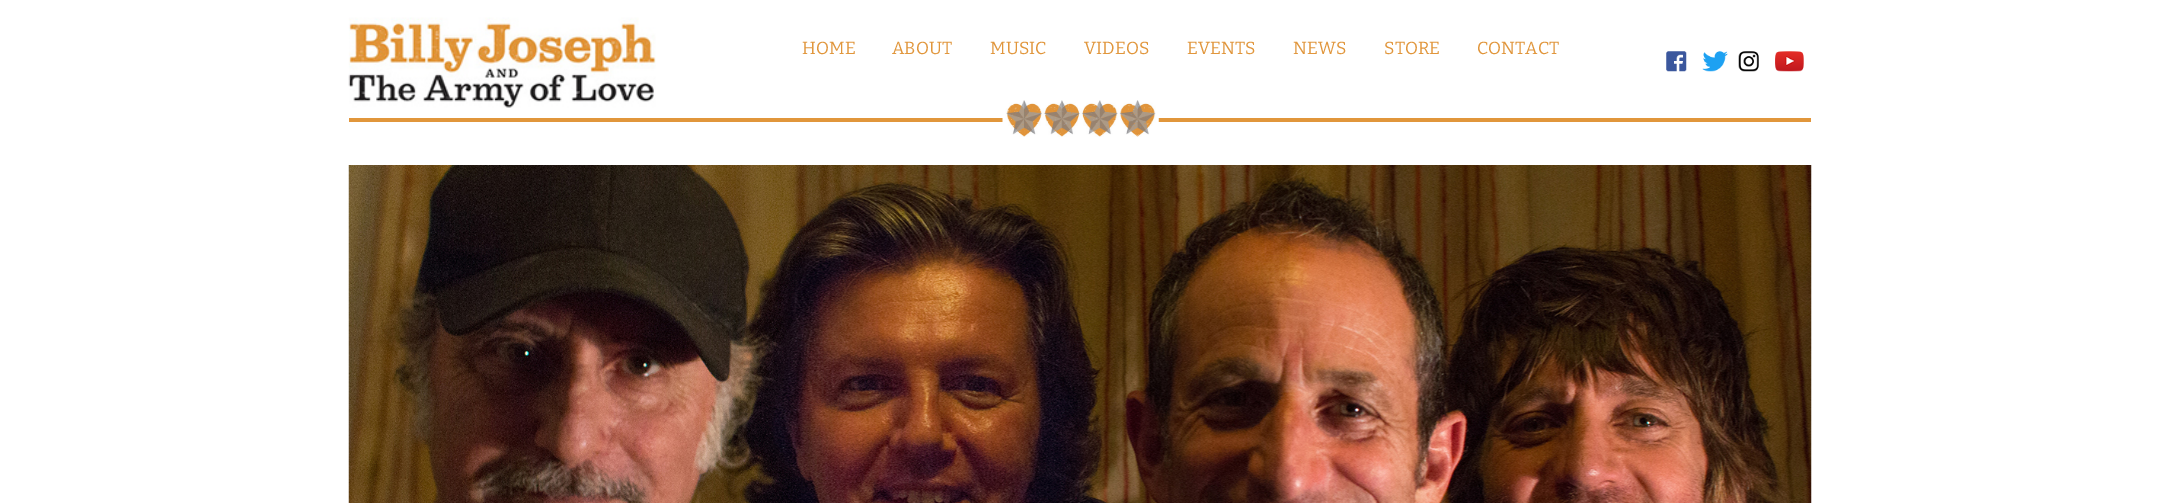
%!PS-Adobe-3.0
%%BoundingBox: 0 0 2159 503
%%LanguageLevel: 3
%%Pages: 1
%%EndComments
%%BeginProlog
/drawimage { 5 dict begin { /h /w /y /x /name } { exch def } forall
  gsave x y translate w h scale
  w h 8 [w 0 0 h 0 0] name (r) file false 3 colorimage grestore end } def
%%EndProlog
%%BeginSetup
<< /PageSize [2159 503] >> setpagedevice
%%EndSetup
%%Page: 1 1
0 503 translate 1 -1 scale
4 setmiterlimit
1 setgray
0 0 2159 503 rectfill
0.882 0.588 0.231 setrgbcolor
349 118 1462 4 rectfill
(images/1.raw) 348 17 308 91 drawimage
(images/2.raw) 1666 51 21 21 drawimage
(images/3.raw) 1702 51 26 21 drawimage
(images/4.raw) 1738 51 21 21 drawimage
(images/5.raw) 1775 51 29 21 drawimage
(images/6.raw) 1002 100 157 37 drawimage
(images/7.raw) 348 165 1464 338 drawimage
/Bitter-Regular [17.5 0 0 -17.5 0 0] selectfont
802 54 moveto (HOME) show
892 54 moveto (ABOUT) show
990 54 moveto (MUSIC) show
1084 54 moveto (VIDEOS) show
1187 54 moveto (EVENTS) show
1293 54 moveto (NEWS) show
1384 54 moveto (STORE) show
1477 54 moveto (CONTACT) show
showpage
%%EOF
